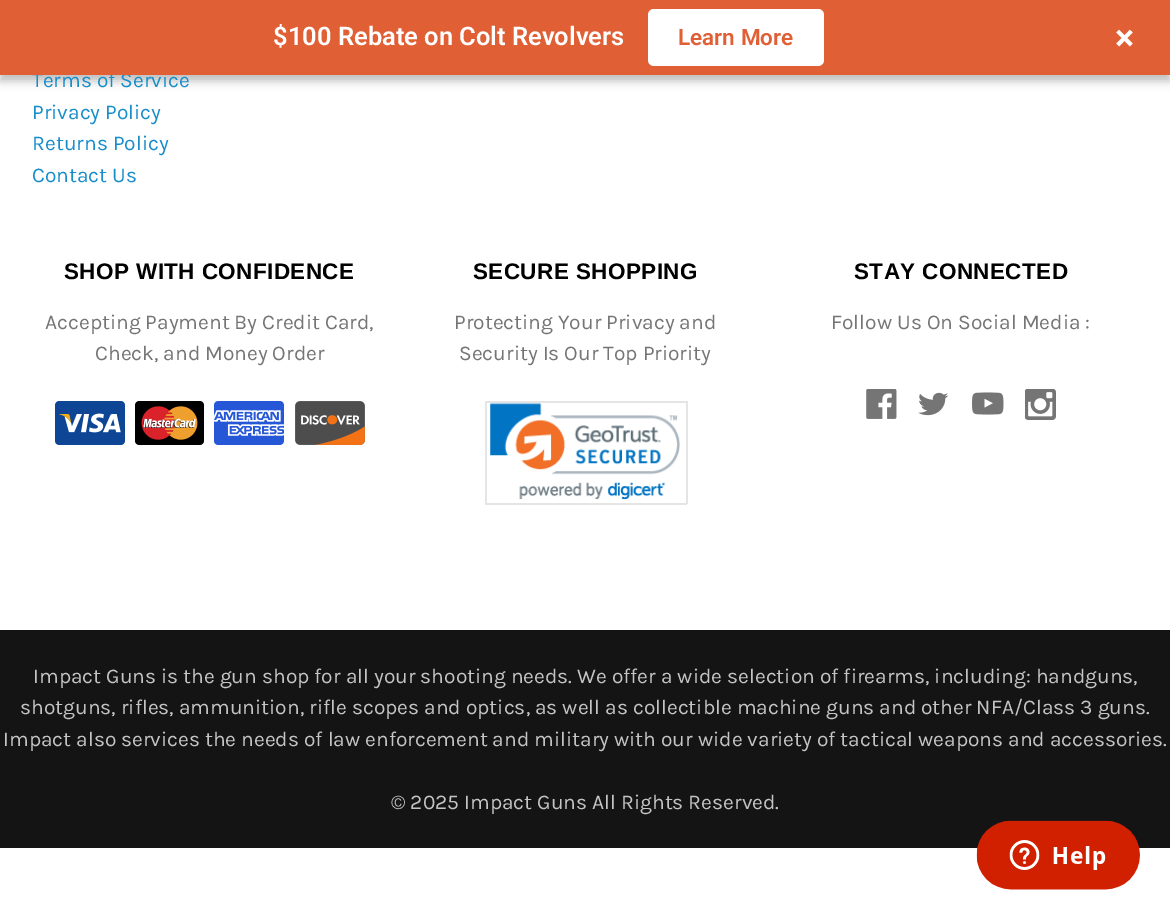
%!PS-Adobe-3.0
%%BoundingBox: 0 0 1170 910
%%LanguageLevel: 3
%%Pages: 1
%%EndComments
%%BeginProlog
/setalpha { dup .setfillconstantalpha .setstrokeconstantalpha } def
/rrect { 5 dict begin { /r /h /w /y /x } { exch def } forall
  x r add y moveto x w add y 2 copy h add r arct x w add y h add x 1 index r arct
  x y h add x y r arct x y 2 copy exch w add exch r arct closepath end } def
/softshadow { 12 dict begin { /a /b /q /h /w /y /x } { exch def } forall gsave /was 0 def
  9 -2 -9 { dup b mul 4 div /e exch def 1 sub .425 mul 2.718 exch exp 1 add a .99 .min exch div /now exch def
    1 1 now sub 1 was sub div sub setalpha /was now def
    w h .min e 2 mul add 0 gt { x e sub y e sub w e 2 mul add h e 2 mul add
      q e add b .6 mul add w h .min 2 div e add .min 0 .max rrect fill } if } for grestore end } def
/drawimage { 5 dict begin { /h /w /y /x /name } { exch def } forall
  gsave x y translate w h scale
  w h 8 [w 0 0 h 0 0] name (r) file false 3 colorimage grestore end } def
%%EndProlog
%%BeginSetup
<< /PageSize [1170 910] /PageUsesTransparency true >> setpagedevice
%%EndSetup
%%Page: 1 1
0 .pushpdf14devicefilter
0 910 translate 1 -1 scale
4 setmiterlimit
1 setgray
0 0 1170 910 rectfill
0 setgray
0 6 1170 75 0 4.5 0.25 softshadow
(images/1.raw) 55 401 70 44 drawimage
(images/2.raw) 135 401 69 44 drawimage
(images/3.raw) 214 401 70 44 drawimage
(images/4.raw) 295 401 70 44 drawimage
0.898 setgray
485 401 202 2 rectfill
686 401 2 103 rectfill
485 503 202 2 rectfill
485 401 2 103 rectfill
(images/5.raw) 490 403 190 97 drawimage
(images/6.raw) 866 389 31 30 drawimage
(images/7.raw) 918 392 31 24 drawimage
(images/8.raw) 972 392 32 23 drawimage
(images/9.raw) 1025 389 31 31 drawimage
0.078 setgray
0 630 1170 218 rectfill
(images/10.raw) 976 820 164 70 drawimage
/Karla-Regular [21 0 0 -21 0 0] selectfont
0.09 0.553 0.788 setrgbcolor
32 87 moveto (Terms of Service) show
0.878 0.373 0.204 setrgbcolor
0 0 1170 75 rectfill
/Roboto-Bold [36 0 0 -36 0 0] selectfont
1 setgray
1115 50 moveto (×) show
648 9 176 57 6 rrect fill
/Roboto-SemiBold [22.5 0 0 -22.5 0 0] selectfont
0.878 0.373 0.204 setrgbcolor
678 45 moveto (Learn More) show
/Roboto-SemiBold [25.5 0 0 -25.5 0 0] selectfont
1 setgray
273 45 moveto ($100 Rebate on Colt Revolvers) show
/Karla-Regular [21 0 0 -21 0 0] selectfont
0.09 0.553 0.788 setrgbcolor
32 119 moveto (Privacy Policy) show
32 150 moveto (Returns Policy) show
32 182 moveto (Contact Us) show
/LiberationSans-Bold [22.5 0 0 -22.5 0 0] selectfont
0 setgray
64 279 moveto 0.4 0 (SHOP WITH CONFIDENCE) ashow
/Karla-Regular [21 0 0 -21 0 0] selectfont
0.459 setgray
45 329 moveto (Accepting Payment By Credit Card,) show
95 360 moveto (Check, and Money Order) show
/LiberationSans-Bold [22.5 0 0 -22.5 0 0] selectfont
0 setgray
473 279 moveto 0.4 0 (SECURE SHOPPING) ashow
/Karla-Regular [21 0 0 -21 0 0] selectfont
0.459 setgray
454 329 moveto (Protecting Your Privacy and) show
459 360 moveto (Security Is Our Top Priority) show
/LiberationSans-Bold [22.5 0 0 -22.5 0 0] selectfont
0 setgray
854 279 moveto 0.4 0 (STAY CONNECTED) ashow
/Karla-Regular [21 0 0 -21 0 0] selectfont
0.459 setgray
831 329 moveto (Follow Us On Social Media :) show
0.769 setgray
33 683 moveto (Impact Guns is the gun shop for all your shooting needs. We offer a wide selection of firearms, including: handguns,) show
20 714 moveto (shotguns, rifles, ammunition, rifle scopes and optics, as well as collectible machine guns and other NFA/Class 3 guns.) show
3 746 moveto (Impact also services the needs of law enforcement and military with our wide variety of tactical weapons and accessories.) show
391 809 moveto (© 2025 Impact Guns All Rights Reserved.) show
.poppdf14devicefilter showpage
%%EOF
